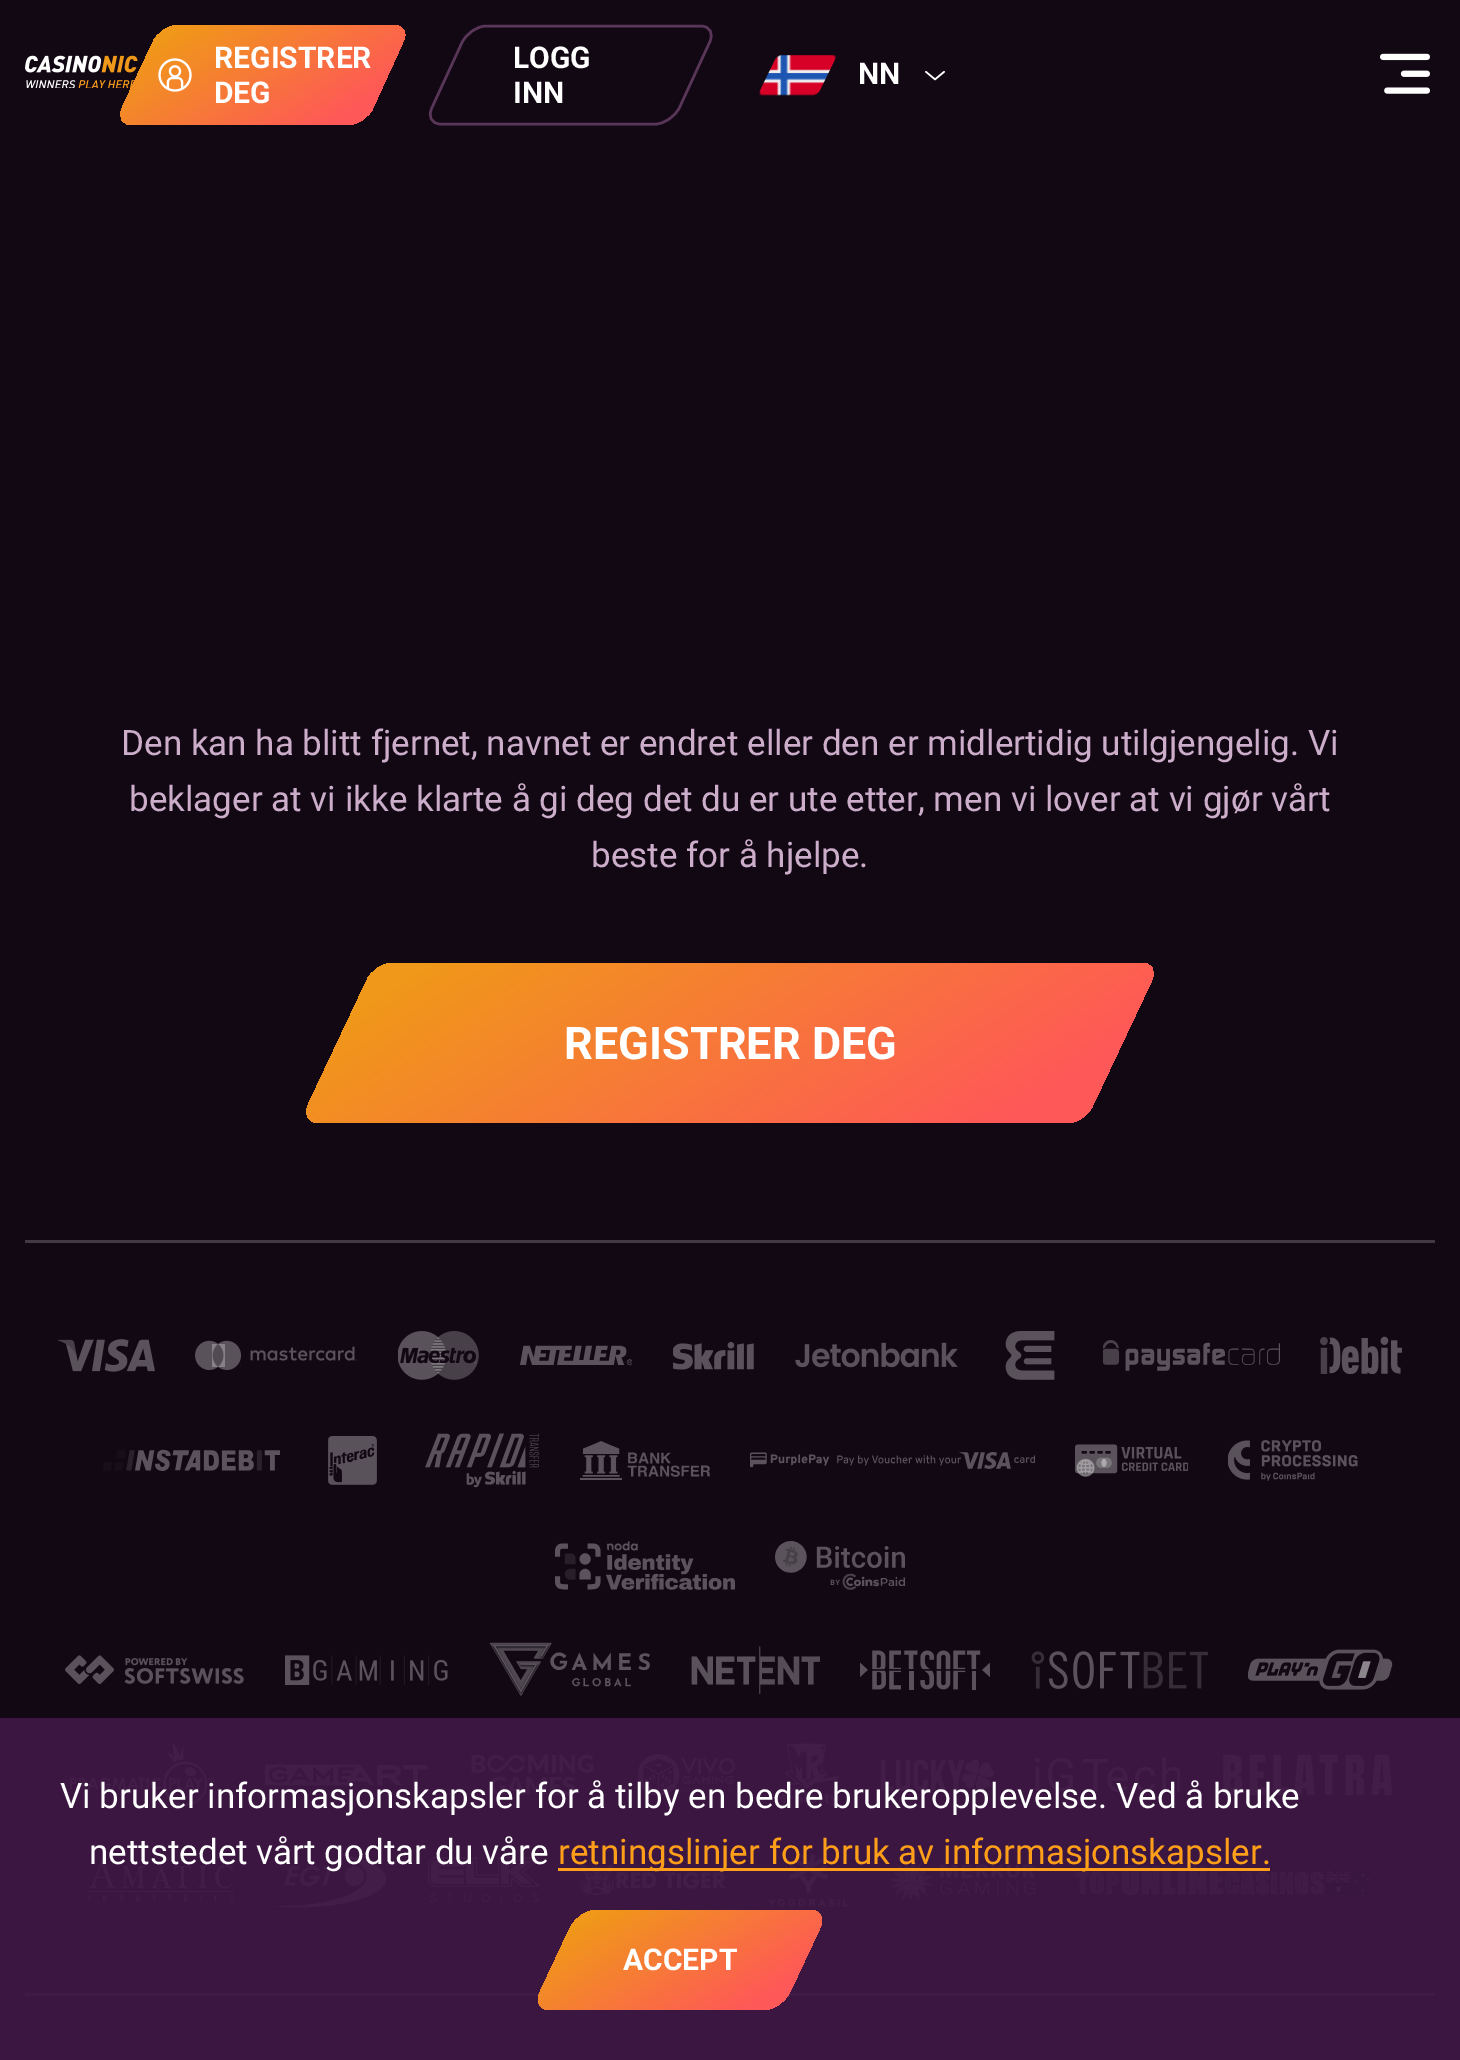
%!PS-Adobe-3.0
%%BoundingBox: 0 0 1460 2060
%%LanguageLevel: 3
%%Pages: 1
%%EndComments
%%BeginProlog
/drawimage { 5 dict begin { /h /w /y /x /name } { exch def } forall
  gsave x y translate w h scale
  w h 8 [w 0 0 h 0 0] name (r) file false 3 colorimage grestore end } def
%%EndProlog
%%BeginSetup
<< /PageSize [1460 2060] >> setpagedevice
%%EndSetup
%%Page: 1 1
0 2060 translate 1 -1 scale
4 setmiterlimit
0.071 0.031 0.078 setrgbcolor
0 0 1460 2060 rectfill
0.227 0.086 0.251 setrgbcolor
0 1718 1460 342 rectfill
(images/1.raw) 25 55 113 33 drawimage
gsave newpath 178 25 moveto 394 25 lineto 404 25 408 33 403 42 curveto 373 108 lineto 369 117 357 125 348 125 curveto 132 125 lineto 122 125 118 117 122 108 curveto 153 42 lineto 157 33 169 25 178 25 curveto closepath clip newpath
<< /ShadingType 2 /ColorSpace /DeviceRGB /Coords [208 -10 318 160] /Extend [true true] /Function << /FunctionType 3 /Domain [0 1] /Functions [<< /FunctionType 2 /Domain [0 1] /C0 [0.941 0.596 0.098] /C1 [0.941 0.596 0.098] /N 1 >> << /FunctionType 2 /Domain [0 1] /C0 [0.941 0.596 0.098] /C1 [1 0.345 0.345] /N 1 >> << /FunctionType 2 /Domain [0 1] /C0 [1 0.345 0.345] /C1 [1 0.345 0.345] /N 1 >>] /Bounds [0.08 0.89] /Encode [0 1 0 1 0 1] >> >> shfill grestore
(images/2.raw) 158 58 34 34 drawimage
0.349 0.208 0.345 setrgbcolor
2.5 setlinewidth
newpath 486 26 moveto 701 26 lineto 710 26 714 33.5 709.5 42.5 curveto 679.5 107.5 lineto 675 116.5 664.5 124 655.5 124 curveto 440.5 124 lineto 431.5 124 427.5 116.5 432 107.5 curveto 462 42.5 lineto 466.5 33.5 477 26 486 26 curveto closepath stroke
(images/3.raw) 759 55 78 41 drawimage
(images/4.raw) 925 71 20 10 drawimage
(images/5.raw) 1380 53 50 41 drawimage
gsave newpath 392 963 moveto 1142 963 lineto 1152 963 1156 971 1152 980 curveto 1093 1105 lineto 1089 1115 1077 1123 1068 1123 curveto 318 1123 lineto 308 1123 304 1115 308 1105 curveto 367 980 lineto 371 971 383 963 392 963 curveto closepath clip newpath
<< /ShadingType 2 /ColorSpace /DeviceRGB /Coords [581 812 879 1274] /Extend [true true] /Function << /FunctionType 3 /Domain [0 1] /Functions [<< /FunctionType 2 /Domain [0 1] /C0 [0.941 0.596 0.098] /C1 [0.941 0.596 0.098] /N 1 >> << /FunctionType 2 /Domain [0 1] /C0 [0.941 0.596 0.098] /C1 [1 0.345 0.345] /N 1 >> << /FunctionType 2 /Domain [0 1] /C0 [1 0.345 0.345] /C1 [1 0.345 0.345] /N 1 >>] /Bounds [0.08 0.89] /Encode [0 1 0 1 0 1] >> >> shfill grestore
0.255 0.224 0.263 setrgbcolor
25 1240 1410 3 rectfill
0.243 0.102 0.271 setrgbcolor
25 1993 1410 3 rectfill
(images/6.raw) 58 1339 97 33 drawimage
(images/7.raw) 195 1340 163 30 drawimage
(images/8.raw) 398 1331 81 49 drawimage
(images/9.raw) 520 1345 112 21 drawimage
(images/10.raw) 673 1342 81 28 drawimage
(images/11.raw) 795 1342 163 26 drawimage
(images/12.raw) 1005 1331 50 49 drawimage
(images/13.raw) 1103 1340 177 31 drawimage
(images/14.raw) 1320 1336 82 38 drawimage
(images/15.raw) 103 1449 177 22 drawimage
(images/16.raw) 328 1436 49 49 drawimage
(images/17.raw) 425 1433 114 55 drawimage
(images/18.raw) 580 1441 130 39 drawimage
(images/19.raw) 750 1452 285 17 drawimage
(images/20.raw) 1075 1444 113 33 drawimage
(images/21.raw) 1228 1440 130 41 drawimage
(images/22.raw) 555 1541 180 49 drawimage
(images/23.raw) 775 1541 130 49 drawimage
(images/24.raw) 65 1655 179 29 drawimage
(images/25.raw) 285 1655 163 30 drawimage
(images/26.raw) 489 1642 161 54 drawimage
(images/27.raw) 691 1646 129 48 drawimage
(images/28.raw) 860 1650 130 40 drawimage
(images/29.raw) 1031 1651 177 38 drawimage
(images/30.raw) 1248 1649 145 41 drawimage
(images/31.raw) 69 1743 147 63 drawimage
(images/32.raw) 265 1764 163 22 drawimage
(images/33.raw) 471 1754 123 41 drawimage
(images/34.raw) 638 1754 97 42 drawimage
(images/35.raw) 775 1743 65 63 drawimage
(images/36.raw) 880 1759 114 33 drawimage
(images/37.raw) 1035 1757 145 35 drawimage
(images/38.raw) 1223 1754 170 42 drawimage
(images/39.raw) 88 1858 145 44 drawimage
(images/40.raw) 273 1853 114 55 drawimage
(images/41.raw) 428 1857 112 46 drawimage
(images/42.raw) 580 1864 146 32 drawimage
(images/43.raw) 768 1854 80 53 drawimage
(images/44.raw) 888 1858 147 44 drawimage
(images/45.raw) 1076 1865 294 30 drawimage
1 0.624 0.098 setrgbcolor
558 1868 712 3 rectfill
gsave newpath 596 1910 moveto 811 1910 lineto 820 1910 825 1918 820 1928 curveto 790 1992 lineto 785 2002 774 2010 764 2010 curveto 549 2010 lineto 540 2010 535 2002 540 1992 curveto 570 1928 lineto 575 1918 586 1910 596 1910 curveto closepath clip newpath
<< /ShadingType 2 /ColorSpace /DeviceRGB /Coords [626 1875 734 2045] /Extend [true true] /Function << /FunctionType 3 /Domain [0 1] /Functions [<< /FunctionType 2 /Domain [0 1] /C0 [0.941 0.596 0.098] /C1 [0.941 0.596 0.098] /N 1 >> << /FunctionType 2 /Domain [0 1] /C0 [0.941 0.596 0.098] /C1 [1 0.345 0.345] /N 1 >> << /FunctionType 2 /Domain [0 1] /C0 [1 0.345 0.345] /C1 [1 0.345 0.345] /N 1 >>] /Bounds [0.08 0.89] /Encode [0 1 0 1 0 1] >> >> shfill grestore
/Roboto-Bold [30 0 0 -30 0 0] selectfont
1 setgray
214 68 moveto (REGISTRER) show
214 103 moveto (DEG) show
513 68 moveto (LOGG) show
513 103 moveto (INN) show
858 84 moveto (NN) show
/Roboto-Regular [35 0 0 -35 0 0] selectfont
0.8 0.678 0.792 setrgbcolor
121 755 moveto (Den kan ha blitt fjernet, navnet er endret eller den er midlertidig utilgjengelig. Vi) show
129 811 moveto (beklager at vi ikke klarte å gi deg det du er ute etter, men vi lover at vi gjør vårt) show
591 867 moveto (beste for å hjelpe.) show
/Roboto-Bold [45 0 0 -45 0 0] selectfont
1 setgray
564 1059 moveto (REGISTRER DEG) show
/Roboto-Regular [35 0 0 -35 0 0] selectfont
60 1808 moveto (Vi bruker informasjonskapsler for å tilby en bedre brukeropplevelse. Ved å bruke) show
89 1864 moveto (nettstedet vårt godtar du våre) show
1 0.624 0.098 setrgbcolor
558 1864 moveto (retningslinjer for bruk av informasjonskapsler.) show
/Roboto-Bold [30 0 0 -30 0 0] selectfont
1 setgray
623 1970 moveto (ACCEPT) show
showpage
%%EOF
